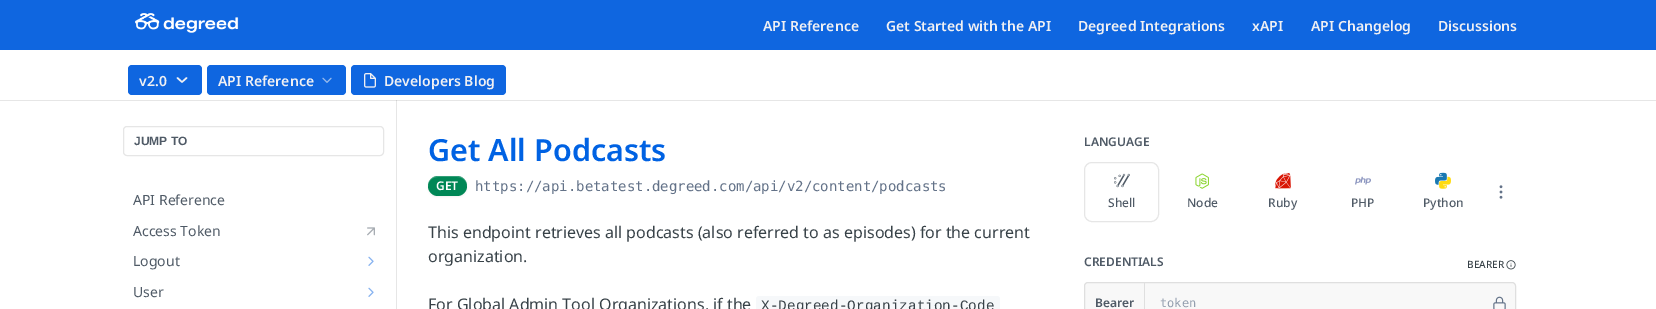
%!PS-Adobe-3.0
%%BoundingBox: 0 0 1656 309
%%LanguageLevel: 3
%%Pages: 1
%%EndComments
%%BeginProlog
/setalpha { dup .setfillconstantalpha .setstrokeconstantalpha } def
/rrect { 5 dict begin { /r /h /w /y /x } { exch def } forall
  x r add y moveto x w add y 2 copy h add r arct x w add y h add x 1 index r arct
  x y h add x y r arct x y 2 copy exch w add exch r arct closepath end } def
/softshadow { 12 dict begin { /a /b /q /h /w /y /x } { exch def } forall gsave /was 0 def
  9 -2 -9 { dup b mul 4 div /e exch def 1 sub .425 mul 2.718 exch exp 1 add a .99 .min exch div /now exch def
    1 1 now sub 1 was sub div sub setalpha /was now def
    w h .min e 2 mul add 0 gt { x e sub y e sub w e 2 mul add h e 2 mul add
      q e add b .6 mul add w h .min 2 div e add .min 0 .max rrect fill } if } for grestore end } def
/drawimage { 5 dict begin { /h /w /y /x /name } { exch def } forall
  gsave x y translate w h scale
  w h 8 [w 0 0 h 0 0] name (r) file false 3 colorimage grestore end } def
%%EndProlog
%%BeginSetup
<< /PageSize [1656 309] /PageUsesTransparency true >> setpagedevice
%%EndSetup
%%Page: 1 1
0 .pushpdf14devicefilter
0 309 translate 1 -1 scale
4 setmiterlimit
1 setgray
0 0 1656 309 rectfill
0.902 setgray
0 100 1656 1 rectfill
0.059 0.4 0.878 setrgbcolor
0 0 1656 50 rectfill
(images/1.raw) 135 13 104 20 drawimage
128 65 74 30 4 rrect fill
0.941 0.941 0.953 setrgbcolor
1.5 setlinewidth
1 setlinecap
1 setlinejoin
newpath 177.5 78 moveto 182 82 lineto 186.5 78 lineto stroke
0.059 0.4 0.878 setrgbcolor
207 65 139 30 4 rrect fill
(images/2.raw) 322 77 10 6 drawimage
351 65 155 30 4 rrect fill
(images/3.raw) 364 73 12 15 drawimage
0.902 setgray
396 100 1 209 rectfill
0.812 setgray
396 100 1 1 rectfill
0.902 setgray
1 setlinewidth
0 setlinecap
0 setlinejoin
123.5 126.5 260 29 3.5 rrect stroke
(images/4.raw) 367 227 8 9 drawimage
(images/5.raw) 368 256 6 10 drawimage
(images/5.raw) 368 287 6 10 drawimage
0 setgray
428 177 39 20 10 1 0.05 softshadow
0 0.529 0.337 setrgbcolor
428 176 39 20 10 rrect fill
0.2 setalpha
1 setgray
newpath 438 177 moveto 457 177 lineto 463 177 467 181 467 186.5 curveto 467 184.5 466.5 182 465.5 180.5 curveto 461.5 174.5 453.5 176 447.5 176 curveto 441.5 176 433.5 174.5 429.5 180.5 curveto 428.5 182 428 184.5 428 186.5 curveto 428 181 432 177 438 177 curveto closepath fill
1 setalpha
0.965 0.973 0.98 setrgbcolor
newpath 759 296 moveto 997 296 lineto 998.5 296 1000 297.5 1000 299 curveto 1000 309 lineto 756 309 lineto 756 299 lineto 756 297.5 757.5 296 759 296 curveto closepath fill
(images/6.raw) 1499 185 4 14 drawimage
0.902 setgray
1084.5 162.5 74 59 7.5 rrect stroke
(images/7.raw) 1114 173 16 15 drawimage
(images/8.raw) 1195 173 14 16 drawimage
(images/9.raw) 1275 172 16 17 drawimage
(images/10.raw) 1355 176 16 9 drawimage
(images/11.raw) 1435 172 12 13 drawimage
(images/12.raw) 1439 176 12 13 drawimage
(images/13.raw) 1506 260 10 10 drawimage
0.973 setgray
newpath 1088 282 moveto 1512 282 lineto 1514 282 1516 284 1516 286 curveto 1516 309 lineto 1084 309 lineto 1084 286 lineto 1084 284 1086 282 1088 282 curveto closepath fill
0.875 setgray
1084.5 282.5 431 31 3.5 rrect stroke
1144 283 1 26 rectfill
(images/14.raw) 1493 296 13 13 drawimage
/NotoSans-SemiBold [14 0 0 -14 0 0] selectfont
0.941 0.941 0.953 setrgbcolor
763 31 moveto (API Reference) show
886 31 moveto (Get Started with the API) show
1078 31 moveto (Degreed Integrations) show
1252 31 moveto (xAPI) show
1311 31 moveto (API Changelog) show
1438 31 moveto (Discussions) show
139 86 moveto (v2.0) show
218 86 moveto (API Reference) show
384 86 moveto (Developers Blog) show
/LiberationSans-Bold [12 0 0 -12 0 0] selectfont
0.31 0.353 0.4 setrgbcolor
134 145 moveto (JUMP TO) show
/NotoSans-Regular [14 0 0 -14 0 0] selectfont
133 205 moveto (API Reference) show
133 236 moveto (Access Token) show
133 266 moveto (Logout) show
133 297 moveto (User) show
/NotoSans-SemiBold [30.5 0 0 -30.5 0 0] selectfont
0 0.384 0.89 setrgbcolor
428 161 moveto (Get All Podcasts) show
/NotoSans-SemiBold [12 0 0 -12 0 0] selectfont
1 setgray
436 190 moveto (GET) show
/DejaVuSansMono-Regular [14 0 0 -14 0 0] selectfont
0.388 0.447 0.533 setrgbcolor
475 191 moveto (https://api.betatest.degreed.com/api/v2/content/podcasts) show
/NotoSans-Regular [16 0 0 -16 0 0] selectfont
0.22 0.259 0.282 setrgbcolor
428 238 moveto (This endpoint retrieves all podcasts \(also referred to as episodes\) for the current) show
428 262 moveto (organization.) show
428 310 moveto (For Global Admin Tool Organizations, if the) show
/LiberationMono-Regular [14.4 0 0 -14.4 0 0] selectfont
761 310 moveto (X-Degreed-Organization-Code) show
/NotoSans-SemiBold [12 0 0 -12 0 0] selectfont
0.31 0.353 0.4 setrgbcolor
1084 146 moveto (LANGUAGE) show
/NotoSans-Medium [12 0 0 -12 0 0] selectfont
1108 207 moveto (Shell) show
1187 207 moveto (Node) show
1268 207 moveto (Ruby) show
1351 207 moveto (PHP) show
1423 207 moveto (Python) show
/NotoSans-SemiBold [12 0 0 -12 0 0] selectfont
1084 266 moveto (CREDENTIALS) show
/NotoSans-Medium [10 0 0 -10 0 0] selectfont
0.22 0.259 0.282 setrgbcolor
1467 268 moveto (BEARER) show
/NotoSans-SemiBold [12 0 0 -12 0 0] selectfont
0.31 0.353 0.4 setrgbcolor
1095 307 moveto (Bearer) show
/DejaVuSansMono-Regular [12 0 0 -12 0 0] selectfont
0.576 0.62 0.682 setrgbcolor
1160 307 moveto (token) show
.poppdf14devicefilter showpage
%%EOF
